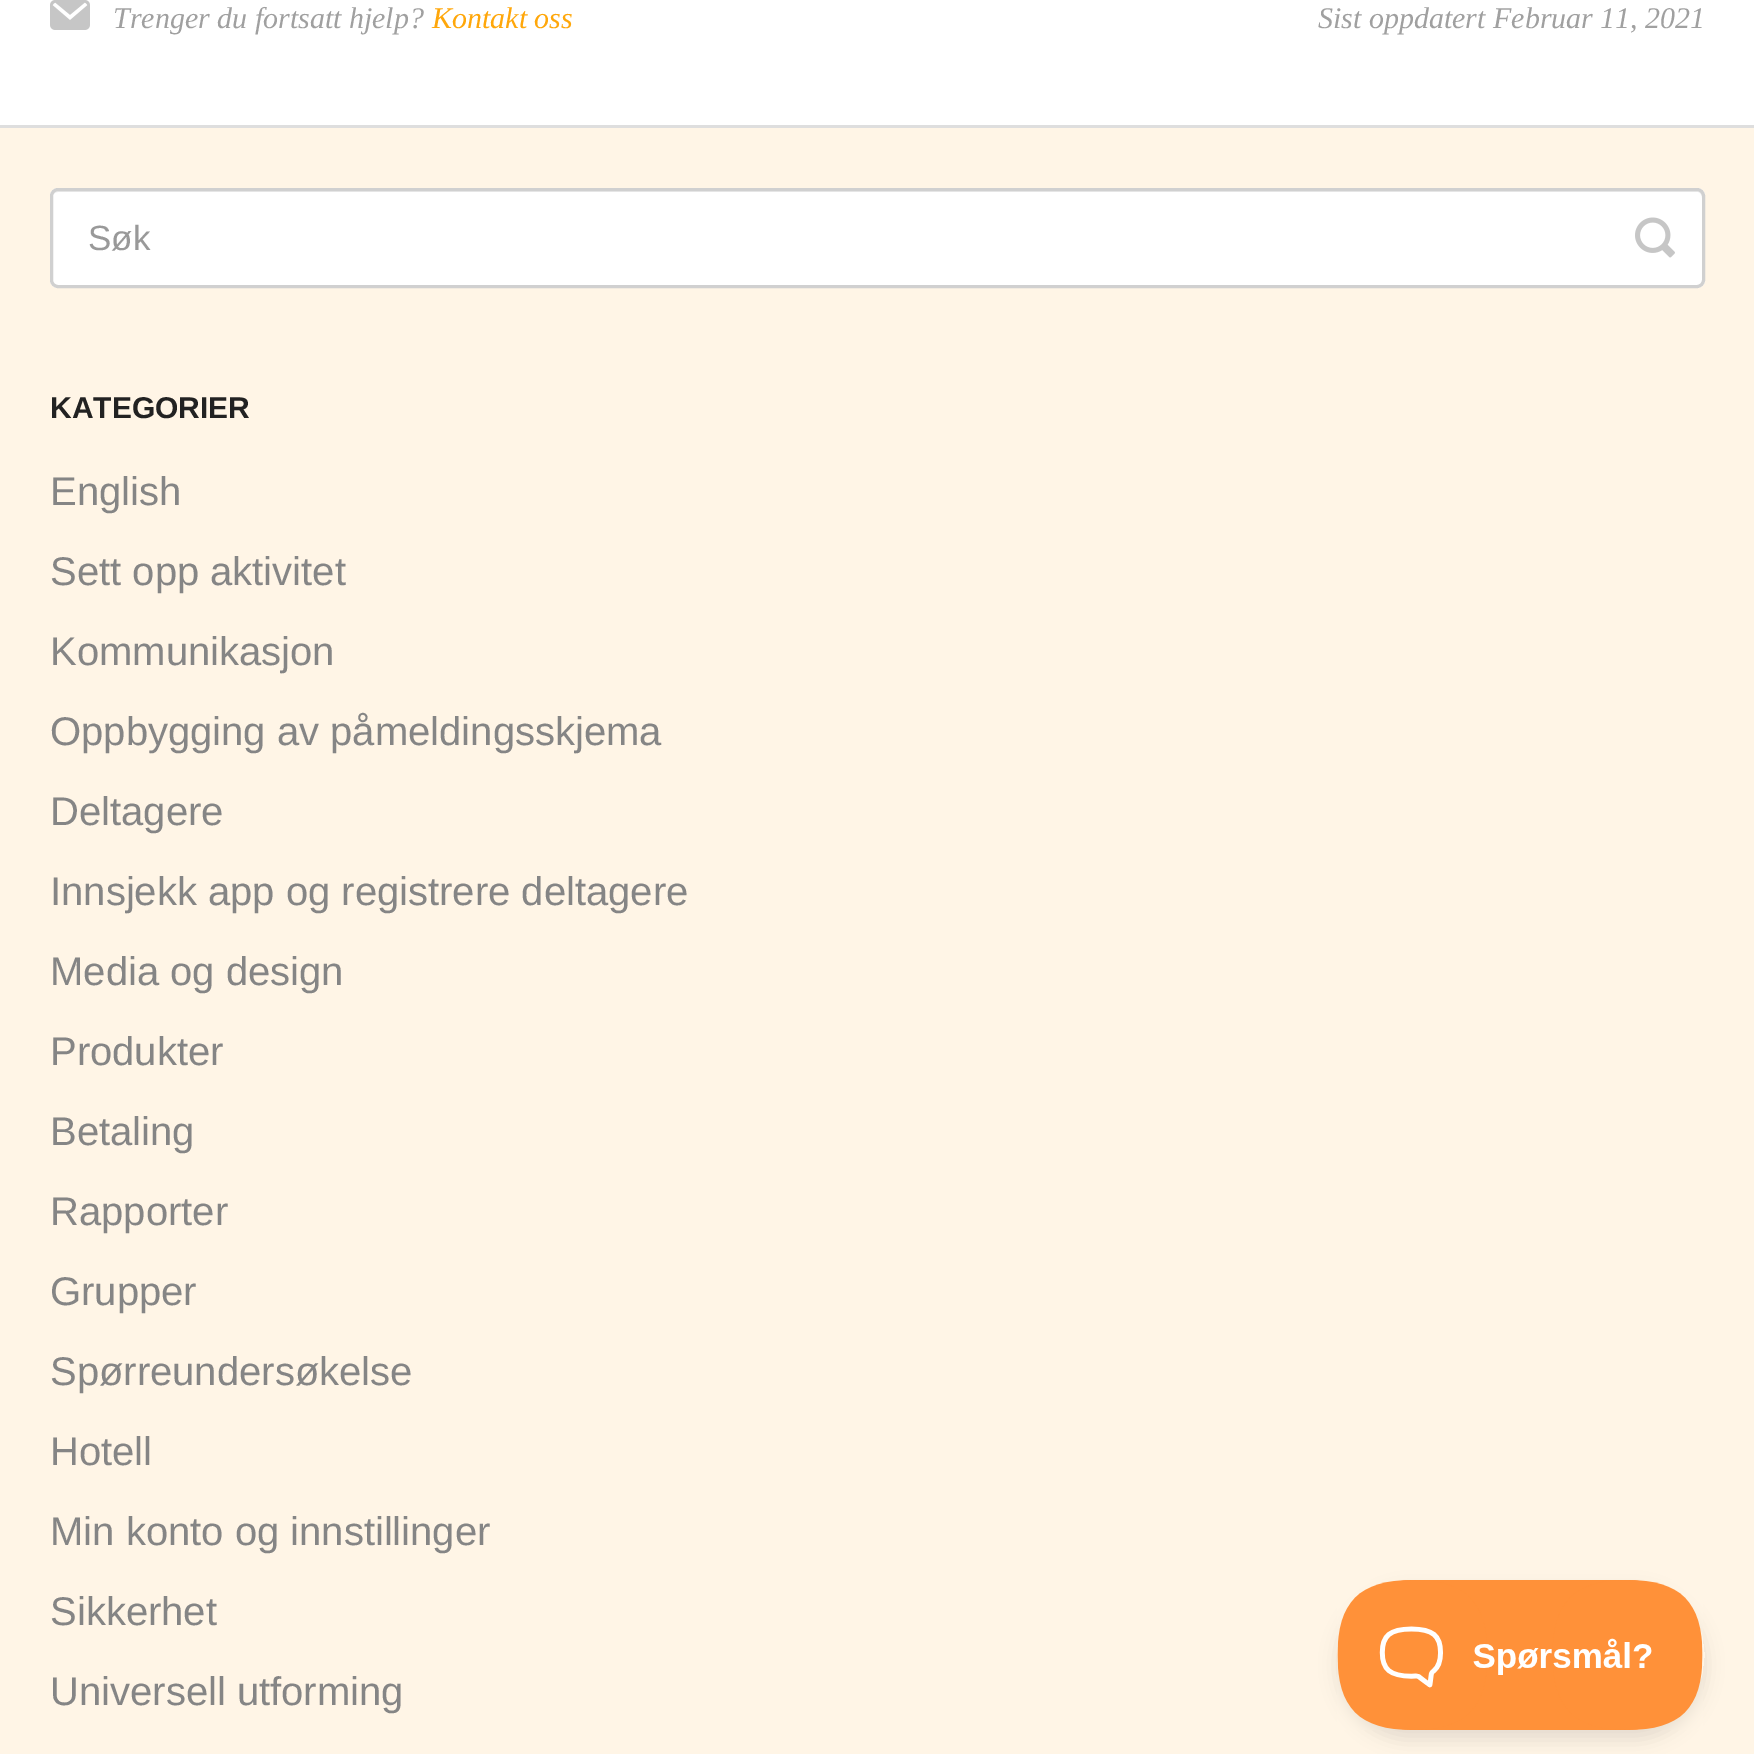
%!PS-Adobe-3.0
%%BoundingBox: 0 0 1754 1754
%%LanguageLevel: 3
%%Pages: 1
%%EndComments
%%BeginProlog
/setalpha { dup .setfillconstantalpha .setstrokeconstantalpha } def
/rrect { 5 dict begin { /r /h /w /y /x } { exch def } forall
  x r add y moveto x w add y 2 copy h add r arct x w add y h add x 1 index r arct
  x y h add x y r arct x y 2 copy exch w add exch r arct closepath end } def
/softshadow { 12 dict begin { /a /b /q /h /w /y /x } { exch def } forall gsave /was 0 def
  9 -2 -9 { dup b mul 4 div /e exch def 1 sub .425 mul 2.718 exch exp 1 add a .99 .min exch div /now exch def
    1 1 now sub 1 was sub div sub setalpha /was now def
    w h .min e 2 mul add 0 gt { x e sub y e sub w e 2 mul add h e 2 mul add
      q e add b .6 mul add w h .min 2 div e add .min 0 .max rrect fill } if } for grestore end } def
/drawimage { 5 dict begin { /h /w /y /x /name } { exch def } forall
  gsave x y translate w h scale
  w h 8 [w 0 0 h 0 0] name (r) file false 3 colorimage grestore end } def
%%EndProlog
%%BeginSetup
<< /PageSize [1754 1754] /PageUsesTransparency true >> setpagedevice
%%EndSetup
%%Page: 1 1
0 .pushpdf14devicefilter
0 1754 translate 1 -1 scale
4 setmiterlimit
1 0.961 0.902 setrgbcolor
0 0 1754 1754 rectfill
1 setgray
0 0 1754 125 rectfill
0.871 setgray
0 125 1754 3 rectfill
(images/1.raw) 50 0 40 30 drawimage
1 setgray
50 188 1655 100 8 rrect fill
0.925 setgray
newpath 58 192 moveto 1698 192 lineto 1700 192 1702 195 1702 198 curveto 1702 283 lineto 1703 282 1703 281 1703 280 curveto 1703 195 lineto 1703 192 1701 190 1698 190 curveto 58 190 lineto 55 190 53 192 53 195 curveto 54 193 56 192 58 192 curveto closepath fill
0.816 setgray
3 setlinewidth
51.5 189.5 1652 97 6.5 rrect stroke
(images/2.raw) 1635 217 40 41 drawimage
gsave
newpath 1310 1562 moveto 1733 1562 lineto 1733 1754 lineto 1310 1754 lineto closepath 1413 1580 moveto 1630 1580 lineto 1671.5 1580 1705 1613.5 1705 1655 curveto 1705 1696.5 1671.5 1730 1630 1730 curveto 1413 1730 lineto 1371.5 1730 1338 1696.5 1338 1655 curveto 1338 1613.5 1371.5 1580 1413 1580 curveto closepath eoclip newpath
0 setgray
1338 1590 367 150 75 9 0.1 softshadow
grestore
(images/3.raw) 1337 1580 366 150 drawimage
/LiberationSerif-Italic [30 0 0 -30 0 0] selectfont
0.627 setgray
113 28 moveto (Trenger du fortsatt hjelp?) show
1 0.655 0.039 setrgbcolor
432 28 moveto (Kontakt oss) show
0.627 setgray
1318 28 moveto (Sist oppdatert Februar 11, 2021) show
/LiberationSans-Regular [35 0 0 -35 0 0] selectfont
0.6 setgray
88 250 moveto (Søk) show
/LiberationSans-Bold [30 0 0 -30 0 0] selectfont
0.133 setgray
50 418 moveto (KATEGORIER) show
/LiberationSans-Regular [40 0 0 -40 0 0] selectfont
0.522 setgray
50 505 moveto (English) show
50 585 moveto (Sett opp aktivitet) show
50 665 moveto (Kommunikasjon) show
50 745 moveto (Oppbygging av påmeldingsskjema) show
50 825 moveto (Deltagere) show
50 905 moveto (Innsjekk app og registrere deltagere) show
50 985 moveto (Media og design) show
50 1065 moveto (Produkter) show
50 1145 moveto (Betaling) show
50 1225 moveto (Rapporter) show
50 1305 moveto (Grupper) show
50 1385 moveto (Spørreundersøkelse) show
50 1465 moveto (Hotell) show
50 1545 moveto (Min konto og innstillinger) show
50 1625 moveto (Sikkerhet) show
50 1705 moveto (Universell utforming) show
.poppdf14devicefilter showpage
%%EOF
